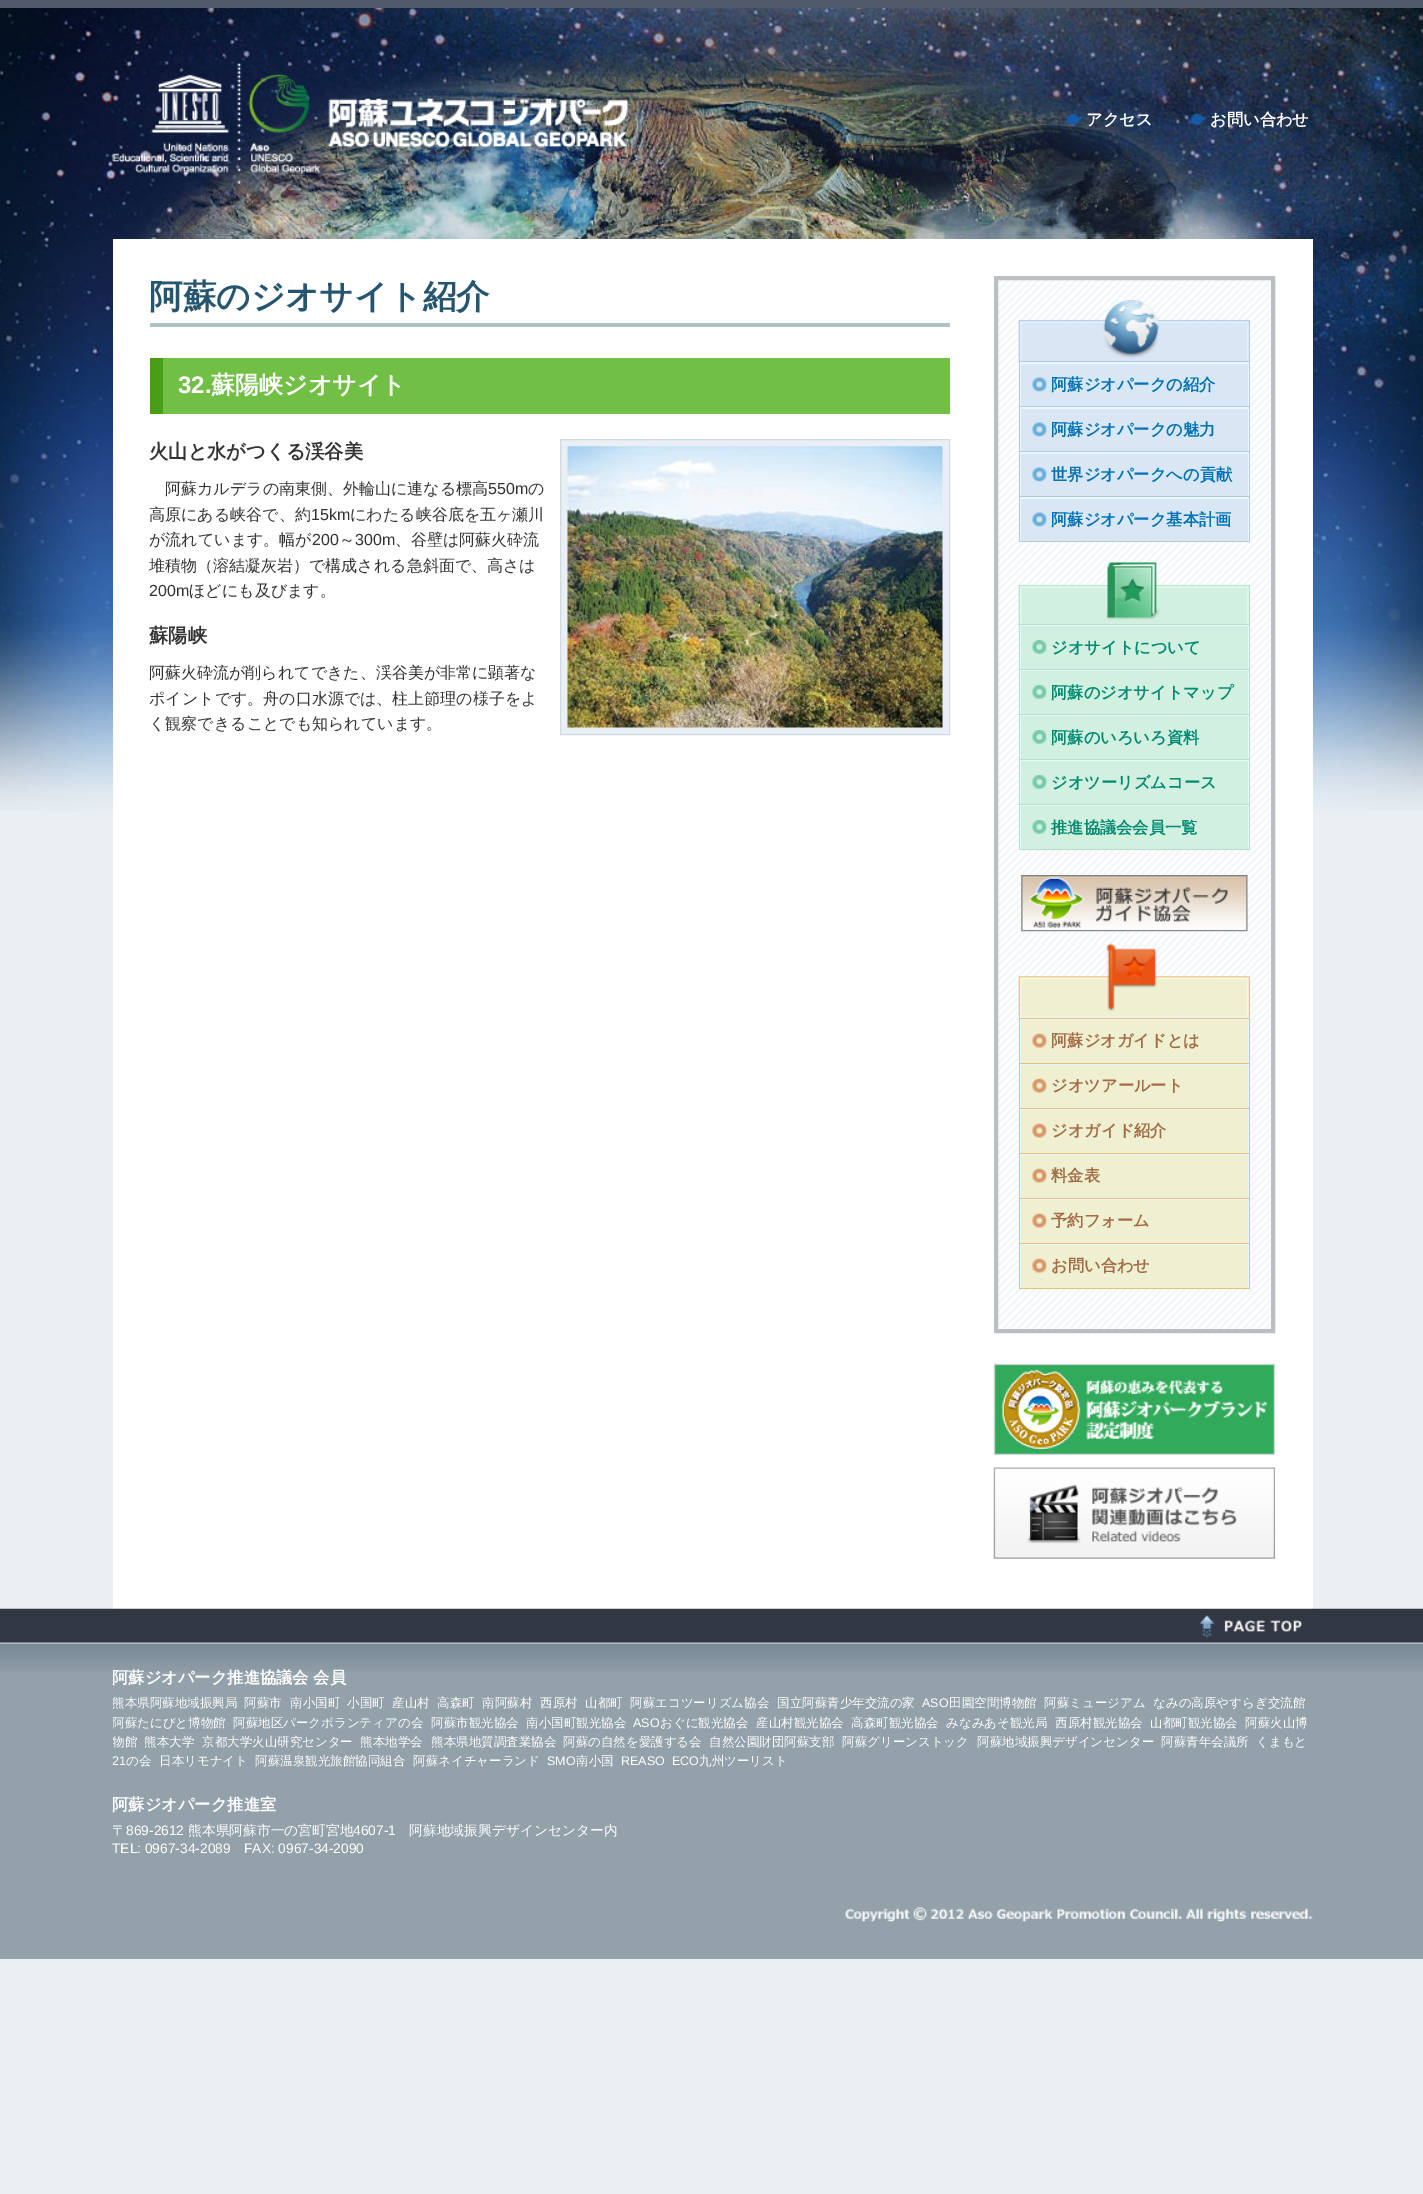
%!PS-Adobe-3.0
%%BoundingBox: 0 0 1423 2194
%%LanguageLevel: 3
%%Pages: 1
%%EndComments
%%BeginProlog
/drawimage { 5 dict begin { /h /w /y /x /name } { exch def } forall
  gsave x y translate w h scale
  w h 8 [w 0 0 h 0 0] name (r) file false 3 colorimage grestore end } def
%%EndProlog
%%BeginSetup
<< /PageSize [1423 2194] >> setpagedevice
%%EndSetup
%%Page: 1 1
0 2194 translate 1 -1 scale
4 setmiterlimit
0.918 0.937 0.957 setrgbcolor
0 0 1423 2194 rectfill
(images/1.raw) 0 810 1423 1 drawimage
(images/2.raw) 0 8 1423 802 drawimage
0.314 0.353 0.416 setrgbcolor
0 0 1423 8 rectfill
(images/3.raw) 112 63 516 121 drawimage
(images/4.raw) 1063 113 20 13 drawimage
(images/5.raw) 1187 112 20 14 drawimage
1 setgray
113 239 1200 1370 rectfill
0.678 0.757 0.78 setrgbcolor
150 323 800 4 rectfill
0.443 0.749 0.267 setrgbcolor
163 358 787 56 rectfill
0.282 0.62 0.086 setrgbcolor
150 358 13 56 rectfill
0.914 0.937 0.957 setrgbcolor
newpath 560.5 439.5 moveto 949.5 439.5 lineto 949.5 734.5 lineto 560.5 734.5 lineto closepath gsave fill grestore
0.812 0.855 0.882 setrgbcolor
stroke
(images/6.raw) 567 446 376 282 drawimage
(images/7.raw) 998 280 273 1049 drawimage
0.729 0.749 0.761 setrgbcolor
4 setlinewidth
996 278 277 1053 rectstroke
(images/8.raw) 1018 300 232 63 drawimage
0.706 0.784 0.875 setrgbcolor
1019 541 231 1 rectfill
0.914 0.969 1 setrgbcolor
1020 362 229 44 rectfill
0.706 0.784 0.875 setrgbcolor
1019 361 231 1 rectfill
1249 361 1 45 rectfill
1019 361 1 45 rectfill
0.851 0.906 0.961 setrgbcolor
1021 364 227 42 rectfill
(images/9.raw) 1032 377 15 15 drawimage
0.914 0.969 1 setrgbcolor
1020 407 229 44 rectfill
0.706 0.784 0.875 setrgbcolor
1019 406 231 1 rectfill
1249 406 1 45 rectfill
1019 406 1 45 rectfill
0.851 0.906 0.961 setrgbcolor
1021 409 227 42 rectfill
(images/9.raw) 1032 422 15 15 drawimage
0.914 0.969 1 setrgbcolor
1020 452 229 44 rectfill
0.706 0.784 0.875 setrgbcolor
1019 451 231 1 rectfill
1249 451 1 45 rectfill
1019 451 1 45 rectfill
0.851 0.906 0.961 setrgbcolor
1021 454 227 42 rectfill
(images/9.raw) 1032 467 15 15 drawimage
0.914 0.969 1 setrgbcolor
1020 497 229 44 rectfill
0.706 0.784 0.875 setrgbcolor
1019 496 231 1 rectfill
1249 496 1 45 rectfill
1019 496 1 45 rectfill
0.851 0.906 0.961 setrgbcolor
1021 499 227 42 rectfill
(images/10.raw) 1032 512 15 15 drawimage
(images/11.raw) 1018 562 232 66 drawimage
0.706 0.875 0.8 setrgbcolor
1019 849 231 1 rectfill
0.914 0.969 1 setrgbcolor
1020 625 229 44 rectfill
0.706 0.875 0.8 setrgbcolor
1019 624 231 1 rectfill
1249 624 1 45 rectfill
1019 624 1 45 rectfill
0.82 0.941 0.878 setrgbcolor
1021 626 227 43 rectfill
(images/12.raw) 1032 640 15 14 drawimage
0.914 0.969 1 setrgbcolor
1020 670 229 44 rectfill
0.706 0.875 0.8 setrgbcolor
1019 669 231 1 rectfill
1249 669 1 45 rectfill
1019 669 1 45 rectfill
0.82 0.941 0.878 setrgbcolor
1021 671 227 43 rectfill
(images/12.raw) 1032 685 15 14 drawimage
0.914 0.969 1 setrgbcolor
1020 715 229 44 rectfill
0.706 0.875 0.8 setrgbcolor
1019 714 231 1 rectfill
1249 714 1 45 rectfill
1019 714 1 45 rectfill
0.82 0.941 0.878 setrgbcolor
1021 716 227 43 rectfill
(images/12.raw) 1032 730 15 14 drawimage
0.914 0.969 1 setrgbcolor
1020 760 229 44 rectfill
0.706 0.875 0.8 setrgbcolor
1019 759 231 1 rectfill
1249 759 1 45 rectfill
1019 759 1 45 rectfill
0.82 0.941 0.878 setrgbcolor
1021 761 227 43 rectfill
(images/13.raw) 1032 775 15 14 drawimage
0.914 0.969 1 setrgbcolor
1020 805 229 44 rectfill
0.706 0.875 0.8 setrgbcolor
1019 804 231 1 rectfill
1249 804 1 45 rectfill
1019 804 1 45 rectfill
0.82 0.941 0.878 setrgbcolor
1021 806 227 43 rectfill
(images/12.raw) 1032 820 15 14 drawimage
(images/14.raw) 1021 875 227 57 drawimage
(images/15.raw) 1018 943 232 75 drawimage
0.902 0.753 0.494 setrgbcolor
1019 1288 231 1 rectfill
0.914 0.969 1 setrgbcolor
1020 1019 229 44 rectfill
0.902 0.753 0.494 setrgbcolor
1019 1018 231 1 rectfill
1249 1018 1 45 rectfill
1019 1018 1 45 rectfill
0.937 0.941 0.82 setrgbcolor
1021 1020 227 43 rectfill
(images/16.raw) 1032 1033 15 15 drawimage
0.914 0.969 1 setrgbcolor
1020 1064 229 44 rectfill
0.902 0.753 0.494 setrgbcolor
1019 1063 231 1 rectfill
1249 1063 1 45 rectfill
1019 1063 1 45 rectfill
0.937 0.941 0.82 setrgbcolor
1021 1065 227 43 rectfill
(images/16.raw) 1032 1078 15 15 drawimage
0.914 0.969 1 setrgbcolor
1020 1109 229 44 rectfill
0.902 0.753 0.494 setrgbcolor
1019 1108 231 1 rectfill
1249 1108 1 45 rectfill
1019 1108 1 45 rectfill
0.937 0.941 0.82 setrgbcolor
1021 1110 227 43 rectfill
(images/16.raw) 1032 1123 15 15 drawimage
0.914 0.969 1 setrgbcolor
1020 1154 229 44 rectfill
0.902 0.753 0.494 setrgbcolor
1019 1153 231 1 rectfill
1249 1153 1 45 rectfill
1019 1153 1 45 rectfill
0.937 0.941 0.82 setrgbcolor
1021 1155 227 43 rectfill
(images/17.raw) 1032 1168 15 15 drawimage
0.914 0.969 1 setrgbcolor
1020 1199 229 44 rectfill
0.902 0.753 0.494 setrgbcolor
1019 1198 231 1 rectfill
1249 1198 1 45 rectfill
1019 1198 1 45 rectfill
0.937 0.941 0.82 setrgbcolor
1021 1200 227 43 rectfill
(images/16.raw) 1032 1213 15 15 drawimage
0.914 0.969 1 setrgbcolor
1020 1244 229 44 rectfill
0.902 0.753 0.494 setrgbcolor
1019 1243 231 1 rectfill
1249 1243 1 45 rectfill
1019 1243 1 45 rectfill
0.937 0.941 0.82 setrgbcolor
1021 1245 227 43 rectfill
(images/16.raw) 1032 1258 15 15 drawimage
(images/18.raw) 993 1363 282 92 drawimage
(images/19.raw) 993 1467 282 92 drawimage
0.576 0.631 0.671 setrgbcolor
0 1672 1423 287 rectfill
(images/20.raw) 0 1608 1423 64 drawimage
(images/21.raw) 1199 1615 103 24 drawimage
(images/22.raw) 845 1907 468 15 drawimage
/WenQuanYiZenHei-Bold [16.25 0 0 -16.25 0 0] selectfont
1 setgray
1086 125 moveto (アクセス) show
1210 125 moveto (お問い合わせ) show
/WenQuanYiZenHei-Bold [33.6 0 0 -33.6 0 0] selectfont
0.149 0.333 0.439 setrgbcolor
149 308 moveto (阿蘇のジオサイト紹介) show
/LiberationSans-Bold [24 0 0 -24 0 0] selectfont
1 setgray
178 393 moveto (32.) show
/WenQuanYiZenHei-Bold [24 0 0 -24 0 0] selectfont
211 393 moveto (蘇陽峡ジオサイト) show
/WenQuanYiZenHei-Bold [19.25 0 0 -19.25 0 0] selectfont
0.2 setgray
149 458 moveto (火山と水がつくる渓谷美) show
/WenQuanYiZenHei-Medium [16 0 0 -16 0 0] selectfont
165 494 moveto (阿蘇カルデラの南東側、外輪山に連なる標高) show
/LiberationSans-Regular [16 0 0 -16 0 0] selectfont
488 494 moveto (550m) show
/WenQuanYiZenHei-Medium [16 0 0 -16 0 0] selectfont
528 494 moveto (の) show
149 520 moveto (高原にある峡谷で、約) show
/LiberationSans-Regular [16 0 0 -16 0 0] selectfont
311 520 moveto (15km) show
/WenQuanYiZenHei-Medium [16 0 0 -16 0 0] selectfont
350 520 moveto (にわたる峡谷底を五ヶ瀬川) show
149 545 moveto (が流れています。幅が) show
/LiberationSans-Regular [16 0 0 -16 0 0] selectfont
312 545 moveto (200) show
/WenQuanYiZenHei-Medium [16 0 0 -16 0 0] selectfont
339 545 moveto (～) show
/LiberationSans-Regular [16 0 0 -16 0 0] selectfont
355 545 moveto (300m) show
/WenQuanYiZenHei-Medium [16 0 0 -16 0 0] selectfont
395 545 moveto (、谷壁は阿蘇火砕流) show
149 571 moveto (堆積物（溶結凝灰岩）で構成される急斜面で、高さは) show
/LiberationSans-Regular [16 0 0 -16 0 0] selectfont
149 596 moveto (200m) show
/WenQuanYiZenHei-Medium [16 0 0 -16 0 0] selectfont
189 596 moveto (ほどにも及びます。) show
/WenQuanYiZenHei-Bold [19.25 0 0 -19.25 0 0] selectfont
149 642 moveto (蘇陽峡) show
/WenQuanYiZenHei-Medium [16 0 0 -16 0 0] selectfont
149 678 moveto (阿蘇火砕流が削られてできた、渓谷美が非常に顕著な) show
149 704 moveto (ポイントです。舟の口水源では、柱上節理の様子をよ) show
149 729 moveto (く観察できることでも知られています。) show
/WenQuanYiZenHei-Bold [16.25 0 0 -16.25 0 0] selectfont
0 0.443 0.702 setrgbcolor
1051 390 moveto (阿蘇ジオパークの紹介) show
1051 435 moveto (阿蘇ジオパークの魅力) show
1051 480 moveto (世界ジオパークへの貢献) show
1051 525 moveto (阿蘇ジオパーク基本計画) show
0 0.541 0.447 setrgbcolor
1051 653 moveto (ジオサイトについて) show
1051 698 moveto (阿蘇のジオサイトマップ) show
1051 743 moveto (阿蘇のいろいろ資料) show
1051 788 moveto (ジオツーリズムコース) show
1051 833 moveto (推進協議会会員一覧) show
0.639 0.424 0.271 setrgbcolor
1051 1046 moveto (阿蘇ジオガイドとは) show
1051 1091 moveto (ジオツアールート) show
1051 1136 moveto (ジオガイド紹介) show
1051 1181 moveto (料金表) show
1051 1226 moveto (予約フォーム) show
1051 1271 moveto (お問い合わせ) show
1 setgray
112 1683 moveto (阿蘇ジオパーク推進協議会 会員) show
/WenQuanYiZenHei-Medium [12.5 0 0 -12.5 0 0] selectfont
112 1707 moveto (熊本県阿蘇地域振興局) show
244 1707 moveto (阿蘇市) show
290 1707 moveto (南小国町) show
347 1707 moveto (小国町) show
392 1707 moveto (産山村) show
437 1707 moveto (高森町) show
482 1707 moveto (南阿蘇村) show
540 1707 moveto (西原村) show
585 1707 moveto (山都町) show
630 1707 moveto (阿蘇エコツーリズム協会) show
777 1707 moveto (国立阿蘇青少年交流の家) show
/LiberationSans-Regular [12.5 0 0 -12.5 0 0] selectfont
922 1707 moveto (ASO) show
/WenQuanYiZenHei-Medium [12.5 0 0 -12.5 0 0] selectfont
949 1707 moveto (田園空間博物館) show
1044 1707 moveto (阿蘇ミュージアム) show
1153 1707 moveto (なみの高原やすらぎ交流館) show
gsave
113 1694 1200 76 rectclip
112 1727 moveto (阿蘇たにびと博物館) show
grestore
233 1727 moveto (阿蘇地区パークボランティアの会) show
431 1727 moveto (阿蘇市観光協会) show
526 1727 moveto (南小国町観光協会) show
/LiberationSans-Regular [12.5 0 0 -12.5 0 0] selectfont
633 1727 moveto (ASO) show
/WenQuanYiZenHei-Medium [12.5 0 0 -12.5 0 0] selectfont
660 1727 moveto (おぐに観光協会) show
756 1727 moveto (産山村観光協会) show
851 1727 moveto (高森町観光協会) show
946 1727 moveto (みなみあそ観光局) show
1055 1727 moveto (西原村観光協会) show
1150 1727 moveto (山都町観光協会) show
1245 1727 moveto (阿蘇火山博) show
gsave
113 1694 1200 76 rectclip
112 1746 moveto (物館) show
grestore
144 1746 moveto (熊本大学) show
202 1746 moveto (京都大学火山研究センター) show
360 1746 moveto (熊本地学会) show
431 1746 moveto (熊本県地質調査業協会) show
563 1746 moveto (阿蘇の自然を愛護する会) show
709 1746 moveto (自然公園財団阿蘇支部) show
842 1746 moveto (阿蘇グリーンストック) show
977 1746 moveto (阿蘇地域振興デザインセンター) show
1161 1746 moveto (阿蘇青年会議所) show
1256 1746 moveto (くまもと) show
gsave
113 1694 1200 76 rectclip
/LiberationSans-Regular [12.5 0 0 -12.5 0 0] selectfont
112 1765 moveto (21) show
grestore
126 1765 moveto (の会) show
159 1765 moveto (日本リモナイト) show
255 1765 moveto (阿蘇温泉観光旅館協同組合) show
413 1765 moveto (阿蘇ネイチャーランド) show
/LiberationSans-Regular [12.5 0 0 -12.5 0 0] selectfont
547 1765 moveto (SMO) show
/WenQuanYiZenHei-Medium [12.5 0 0 -12.5 0 0] selectfont
576 1765 moveto (南小国) show
/LiberationSans-Regular [12.5 0 0 -12.5 0 0] selectfont
621 1765 moveto (REASO) show
672 1765 moveto (ECO) show
/WenQuanYiZenHei-Medium [12.5 0 0 -12.5 0 0] selectfont
699 1765 moveto (九州ツーリスト) show
/WenQuanYiZenHei-Bold [16.25 0 0 -16.25 0 0] selectfont
112 1810 moveto (阿蘇ジオパーク推進室) show
/WenQuanYiZenHei-Medium [13.75 0 0 -13.75 0 0] selectfont
112 1835 moveto (〒) show
/LiberationSans-Regular [13.75 0 0 -13.75 0 0] selectfont
126 1835 moveto (869-2612) show
/WenQuanYiZenHei-Medium [13.75 0 0 -13.75 0 0] selectfont
188 1835 moveto (熊本県阿蘇市一の宮町宮地) show
/LiberationSans-Regular [13.75 0 0 -13.75 0 0] selectfont
353 1835 moveto (4607-1) show
/WenQuanYiZenHei-Medium [13.75 0 0 -13.75 0 0] selectfont
409 1835 moveto (阿蘇地域振興デザインセンター内) show
/LiberationSans-Regular [13.75 0 0 -13.75 0 0] selectfont
112 1853 moveto (TEL: 0967-34-2089) show
244 1853 moveto (FAX: 0967-34-2090) show
showpage
%%EOF
